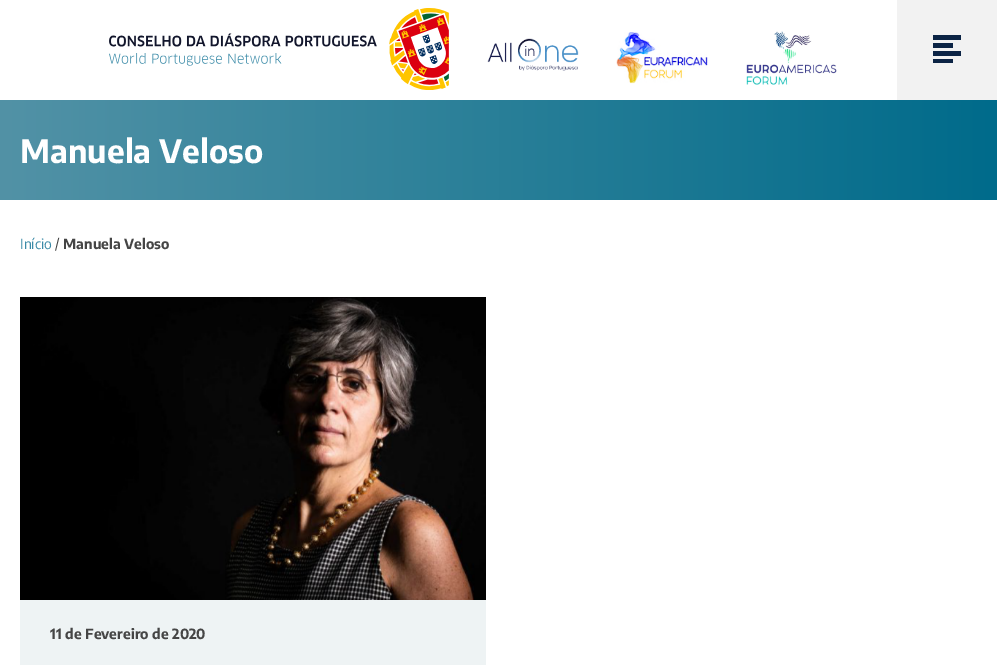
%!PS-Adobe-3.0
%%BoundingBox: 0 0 997 665
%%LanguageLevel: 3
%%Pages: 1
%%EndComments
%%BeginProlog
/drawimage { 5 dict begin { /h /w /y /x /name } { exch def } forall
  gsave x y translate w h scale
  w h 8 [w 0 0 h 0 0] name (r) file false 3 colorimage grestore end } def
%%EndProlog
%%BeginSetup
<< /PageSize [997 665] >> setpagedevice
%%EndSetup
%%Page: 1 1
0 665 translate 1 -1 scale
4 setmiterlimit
1 setgray
0 0 997 665 rectfill
(images/1.raw) 109 8 340 82 drawimage
(images/2.raw) 487 38 92 33 drawimage
(images/3.raw) 616 32 92 52 drawimage
(images/4.raw) 746 31 91 54 drawimage
0.949 setgray
897 0 100 100 rectfill
0.047 0.141 0.271 setrgbcolor
933 35 28 5 rectfill
933 43 20 5 rectfill
933 51 28 5 rectfill
933 59 20 4 rectfill
gsave newpath 0 100 moveto 997 100 lineto 997 200 lineto 0 200 lineto closepath clip newpath
<< /ShadingType 2 /ColorSpace /DeviceRGB /Coords [0 150 997 150] /Extend [true true] /Function << /FunctionType 2 /Domain [0 1] /C0 [0.322 0.573 0.651] /C1 [0 0.42 0.545] /N 1 >> >> shfill grestore
0.933 0.953 0.957 setrgbcolor
20 600 466 65 rectfill
(images/5.raw) 20 297 466 303 drawimage
/EncodeSansCondensed-Bold [32 0 0 -32 0 0] selectfont
1 setgray
20 163 moveto (Manuela Veloso) show
/EncodeSansCondensed-Regular [14 0 0 -14 0 0] selectfont
0.227 0.541 0.655 setrgbcolor
20 249 moveto (Início) show
0.271 setgray
55 249 moveto (/) show
/EncodeSansCondensed-Bold [14 0 0 -14 0 0] selectfont
63 249 moveto (Manuela Veloso) show
50 639 moveto (11 de Fevereiro de 2020) show
showpage
%%EOF
